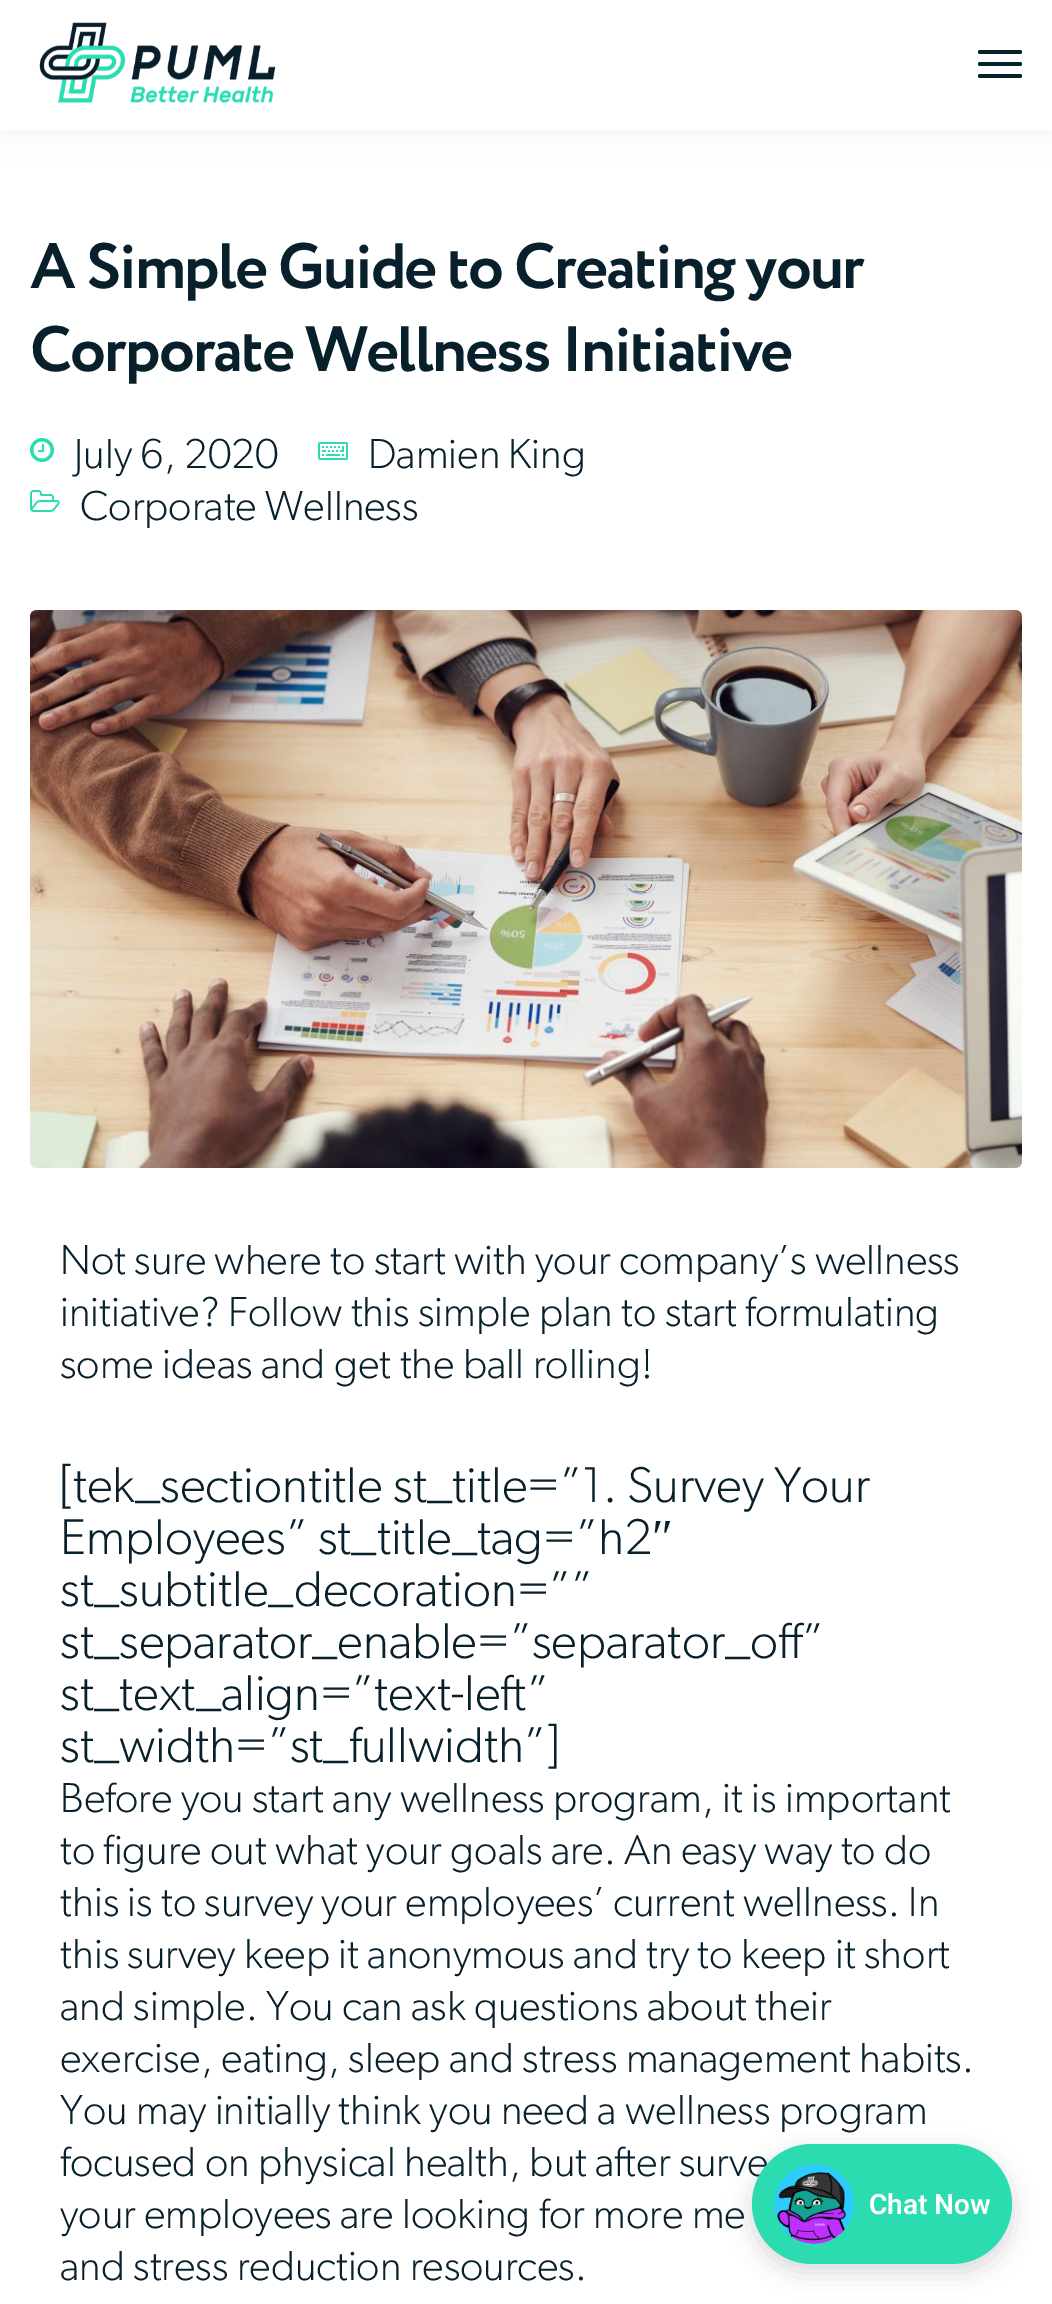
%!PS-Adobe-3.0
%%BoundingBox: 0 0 1052 2304
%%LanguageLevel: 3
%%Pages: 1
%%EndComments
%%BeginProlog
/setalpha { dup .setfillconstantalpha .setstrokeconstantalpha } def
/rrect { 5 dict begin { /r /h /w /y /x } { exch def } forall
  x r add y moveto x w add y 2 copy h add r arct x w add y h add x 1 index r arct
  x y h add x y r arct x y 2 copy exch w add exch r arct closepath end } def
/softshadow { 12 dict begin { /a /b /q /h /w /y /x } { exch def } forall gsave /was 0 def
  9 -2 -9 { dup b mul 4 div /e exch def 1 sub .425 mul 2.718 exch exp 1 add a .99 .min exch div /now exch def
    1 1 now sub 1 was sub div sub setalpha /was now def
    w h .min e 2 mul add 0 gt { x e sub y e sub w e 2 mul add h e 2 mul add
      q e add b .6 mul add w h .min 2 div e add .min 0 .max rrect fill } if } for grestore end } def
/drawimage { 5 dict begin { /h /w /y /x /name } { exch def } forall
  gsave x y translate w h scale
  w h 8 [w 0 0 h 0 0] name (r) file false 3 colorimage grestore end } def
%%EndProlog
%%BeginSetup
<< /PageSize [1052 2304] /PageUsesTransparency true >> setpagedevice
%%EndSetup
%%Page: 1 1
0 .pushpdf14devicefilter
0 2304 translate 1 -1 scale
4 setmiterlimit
1 setgray
0 0 1052 2304 rectfill
0 setgray
0 0 1052 130 0 20 0.05 softshadow
1 setgray
0 0 1052 130 rectfill
(images/1.raw) 39 22 237 81 drawimage
0.031 0.122 0.173 setrgbcolor
978 50 44 4 2 rrect fill
978 62 44 4 2 rrect fill
978 74 44 4 2 rrect fill
(images/2.raw) 30 438 24 24 drawimage
(images/3.raw) 318 442 30 18 drawimage
(images/4.raw) 30 490 30 22 drawimage
(images/5.raw) 30 610 992 558 drawimage
0 setgray
752 2152 260 120 60 12 0.15 softshadow
/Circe-Bold [64 0 0 -64 0 0] selectfont
0.031 0.122 0.173 setrgbcolor
30 288 moveto -1.9 0 (A Simple Guide to Creating your) ashow
30 371 moveto -1.9 0 (Corporate Wellness Initiative) ashow
/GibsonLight-Light [42 0 0 -42 0 0] selectfont
74 468 moveto (July 6, 2020) show
368 468 moveto (Damien King) show
80 520 moveto (Corporate Wellness) show
60 1274 moveto (Not sure where to start with your company’s wellness) show
60 1326 moveto (initiative? Follow this simple plan to start formulating) show
60 1378 moveto (some ideas and get the ball rolling!) show
/GibsonLight-Light [50.4 0 0 -50.4 0 0] selectfont
60 1502 moveto ([tek_sectiontitle st_title=”1. Survey Your) show
60 1554 moveto (Employees” st_title_tag=”h2) show
/LiberationSerif-Regular [50.4 0 0 -50.4 0 0] selectfont
652 1554 moveto (″) show
/GibsonLight-Light [50.4 0 0 -50.4 0 0] selectfont
60 1606 moveto (st_subtitle_decoration=””) show
60 1658 moveto (st_separator_enable=”separator_off”) show
60 1710 moveto (st_text_align=”text-left”) show
60 1762 moveto (st_width=”st_fullwidth”]) show
/GibsonLight-Light [42 0 0 -42 0 0] selectfont
60 1812 moveto (Before you start any wellness program, it is important) show
60 1864 moveto (to figure out what your goals are. An easy way to do) show
60 1916 moveto (this is to survey your employees’ current wellness. In) show
60 1968 moveto (this survey keep it anonymous and try to keep it short) show
60 2020 moveto (and simple. You can ask questions about their) show
60 2072 moveto (exercise, eating, sleep and stress management habits.) show
60 2124 moveto (You may initially think you need a wellness program) show
60 2176 moveto (focused on physical health, but after surve) show
60 2228 moveto (your employees are looking for more me) show
60 2280 moveto (and stress reduction resources.) show
0.169 0.863 0.69 setrgbcolor
752 2144 260 120 60 rrect fill
(images/6.raw) 774 2164 80 80 drawimage
/Roboto-SemiBold [28 0 0 -28 0 0] selectfont
1 setgray
869 2214 moveto (Chat Now) show
.poppdf14devicefilter showpage
%%EOF
